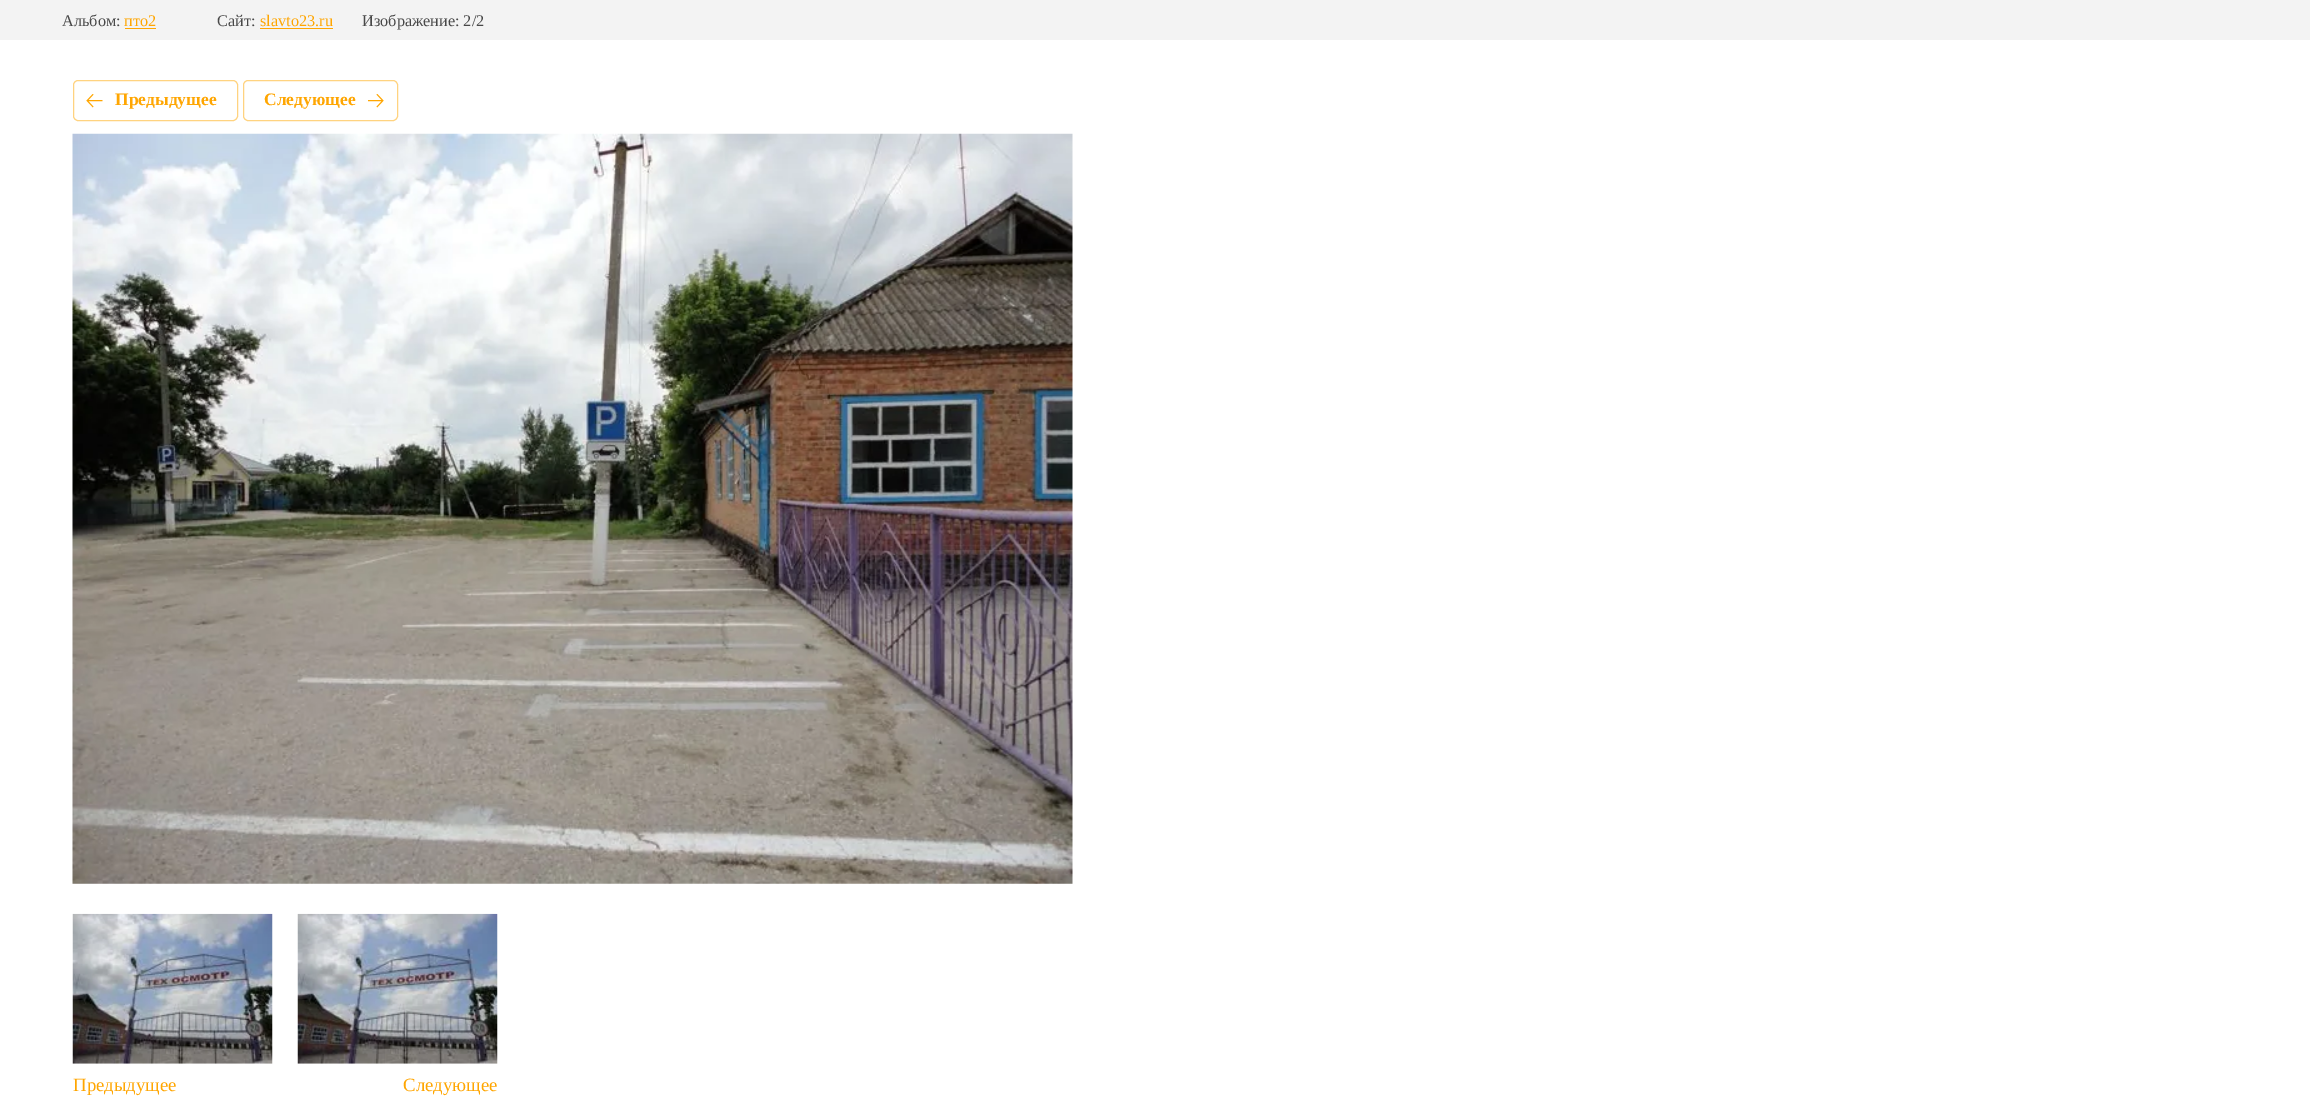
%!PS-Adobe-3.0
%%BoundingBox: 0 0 2310 1097
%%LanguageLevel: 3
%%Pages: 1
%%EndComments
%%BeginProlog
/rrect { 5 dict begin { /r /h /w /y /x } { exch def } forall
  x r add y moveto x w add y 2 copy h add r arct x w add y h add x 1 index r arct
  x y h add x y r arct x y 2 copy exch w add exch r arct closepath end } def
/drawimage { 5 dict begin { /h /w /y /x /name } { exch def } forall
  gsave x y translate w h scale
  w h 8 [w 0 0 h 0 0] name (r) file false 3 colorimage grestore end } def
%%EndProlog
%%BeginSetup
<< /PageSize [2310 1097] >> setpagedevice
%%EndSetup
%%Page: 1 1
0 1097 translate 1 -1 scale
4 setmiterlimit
1 setgray
0 0 2310 1097 rectfill
0.953 setgray
0 0 2310 40 rectfill
1 0.651 0.004 setrgbcolor
125 28 31 1 rectfill
260 28 73 1 rectfill
1 0.827 0.502 setrgbcolor
73.5 80.5 164 40 4.5 rrect stroke
(images/1.raw) 86 94 17 14 drawimage
243.5 80.5 154 40 4.5 rrect stroke
(images/2.raw) 368 94 16 14 drawimage
(images/3.raw) 72 133 1001 751 drawimage
(images/4.raw) 72 913 201 151 drawimage
(images/5.raw) 297 913 201 151 drawimage
/LiberationSerif-Regular [16.25 0 0 -16.25 0 0] selectfont
0.282 setgray
62 26 moveto (Альбом:) show
1 0.651 0.004 setrgbcolor
124 26 moveto (пто2) show
0.282 setgray
217 26 moveto (Сайт:) show
1 0.651 0.004 setrgbcolor
260 26 moveto (slavto23.ru) show
0.282 setgray
362 26 moveto (Изображение: 2/2) show
/LiberationSerif-Bold [17.5 0 0 -17.5 0 0] selectfont
1 0.651 0.004 setrgbcolor
115 105 moveto (Предыдущее) show
264 105 moveto (Следующее) show
/LiberationSerif-Regular [18.75 0 0 -18.75 0 0] selectfont
73 1091 moveto (Предыдущее) show
403 1091 moveto (Следующее) show
showpage
%%EOF
